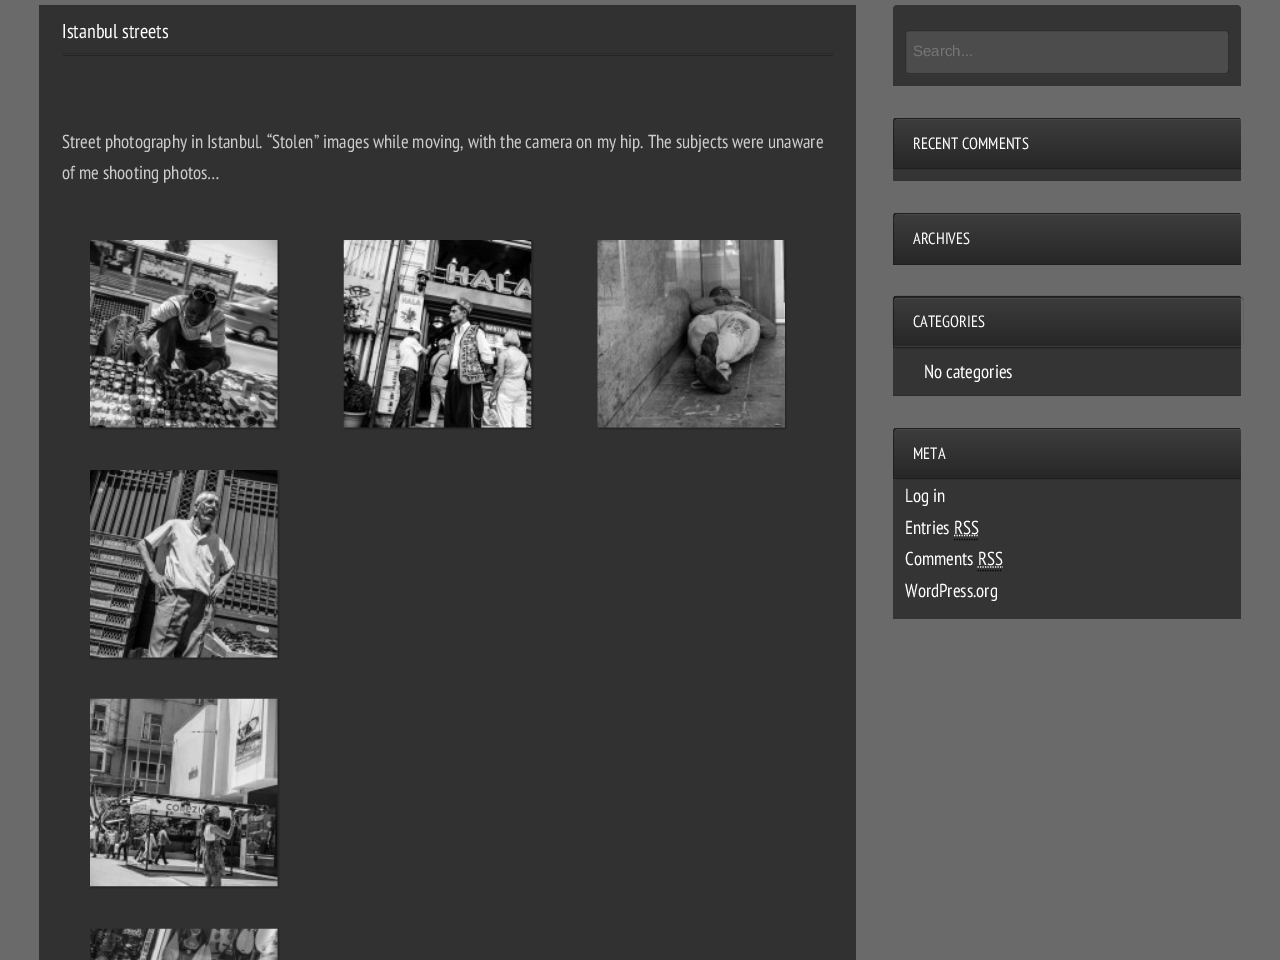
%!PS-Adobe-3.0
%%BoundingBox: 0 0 1280 960
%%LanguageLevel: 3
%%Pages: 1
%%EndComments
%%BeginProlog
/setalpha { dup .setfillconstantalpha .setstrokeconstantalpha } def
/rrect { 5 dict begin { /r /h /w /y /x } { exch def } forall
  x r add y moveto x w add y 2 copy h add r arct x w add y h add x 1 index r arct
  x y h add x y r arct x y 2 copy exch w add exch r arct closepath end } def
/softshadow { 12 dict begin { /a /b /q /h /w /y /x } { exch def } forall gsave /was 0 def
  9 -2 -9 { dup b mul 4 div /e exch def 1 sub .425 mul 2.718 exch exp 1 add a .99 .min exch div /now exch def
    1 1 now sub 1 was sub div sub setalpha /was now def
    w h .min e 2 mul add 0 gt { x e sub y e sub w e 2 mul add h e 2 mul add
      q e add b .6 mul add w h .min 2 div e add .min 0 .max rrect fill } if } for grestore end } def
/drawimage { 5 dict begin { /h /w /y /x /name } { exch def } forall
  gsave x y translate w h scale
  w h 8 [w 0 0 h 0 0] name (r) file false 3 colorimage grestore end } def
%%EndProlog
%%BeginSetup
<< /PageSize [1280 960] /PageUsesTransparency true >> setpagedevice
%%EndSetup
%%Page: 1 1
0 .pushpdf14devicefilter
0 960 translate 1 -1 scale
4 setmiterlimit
0.416 setgray
0 0 1280 960 rectfill
0.192 setgray
39 5 817 955 rectfill
0.169 setgray
63 53 770 1 rectfill
0.145 setgray
63 55 770 1 rectfill
0 setgray
91 241 188 188 0 1 0.3 softshadow
(images/1.raw) 90 240 188 188 drawimage
345 241 188 188 0 1 0.3 softshadow
(images/2.raw) 343 240 189 188 drawimage
599 241 187 188 0 1 0.3 softshadow
(images/3.raw) 597 240 188 188 drawimage
91 471 188 188 0 1 0.3 softshadow
(images/4.raw) 90 470 188 188 drawimage
91 700 188 188 0 1 0.3 softshadow
(images/5.raw) 90 698 188 189 drawimage
91 930 188 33 0 1 0.3 softshadow
(images/6.raw) 90 928 188 32 drawimage
0.204 setgray
newpath 897 5 moveto 1237 5 lineto 1239 5 1241 7 1241 9 curveto 1241 86 lineto 893 86 lineto 893 9 lineto 893 7 895 5 897 5 curveto closepath fill
0.235 setgray
newpath 905 70 moveto 905 71 lineto 905 73 907 75 909 75 curveto 1225 75 lineto 1227 75 1229 73 1229 71 curveto 1229 34 lineto 1229 70 lineto 1229 72 1227 74 1225 74 curveto 909 74 lineto 907 74 905 72 905 70 curveto closepath fill
0.298 setgray
905.5 30.5 323 43 3.5 rrect gsave fill grestore
0.184 setgray
stroke
0.204 setgray
newpath 897 118 moveto 1237 118 lineto 1239 118 1241 120 1241 122 curveto 1241 181 lineto 893 181 lineto 893 122 lineto 893 120 895 118 897 118 curveto closepath fill
gsave
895 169 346 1 rectclip
0 setgray
893 118 350 51 4 0.5 0.3 softshadow
grestore
gsave
newpath 897 118 moveto 1237 118 lineto 1239 118 1241 120 1241 122 curveto 1241 181 lineto 893 181 lineto 893 122 lineto 893 120 895 118 897 118 curveto closepath clip newpath
gsave newpath 893 118 moveto 1241 118 lineto 1241 119 lineto 893 119 lineto closepath clip newpath
<< /ShadingType 2 /ColorSpace /DeviceRGB /Coords [1068 70 1068 119] /Extend [true true] /Function << /FunctionType 2 /Domain [0 1] /C0 [0.239 0.239 0.239] /C1 [0.153 0.153 0.153] /N 1 >> >> shfill grestore
grestore
gsave
newpath 897 118 moveto 1237 118 lineto 1239 118 1241 120 1241 122 curveto 1241 181 lineto 893 181 lineto 893 122 lineto 893 120 895 118 897 118 curveto closepath clip newpath
newpath 897 118 moveto 1239 118 lineto 1241 118 1243 120 1243 122 curveto 1243 169 lineto 893 169 lineto 893 122 lineto 893 120 895 118 897 118 curveto closepath clip newpath
gsave newpath 893 119 moveto 1241 119 lineto 1241 168 lineto 893 168 lineto closepath clip newpath
<< /ShadingType 2 /ColorSpace /DeviceRGB /Coords [1068 119 1068 168] /Extend [true true] /Function << /FunctionType 2 /Domain [0 1] /C0 [0.239 0.239 0.239] /C1 [0.153 0.153 0.153] /N 1 >> >> shfill grestore
grestore
0.278 setgray
newpath 896 120 moveto 895 120 894 121 894 122 curveto 894 120 895 119 896 119 curveto 1239 119 lineto 1240 119 1240 120 1241 121 curveto 1241 122 lineto 1241 121 1240 120 1239 120 curveto closepath fill
0.122 setgray
newpath 897 118 moveto 895 118 893 120 893 122 curveto 893 169 lineto 1241 169 lineto 1241 168 lineto 894 168 lineto 894 130 lineto 894 128 892 119 897 119 curveto 1240 119 lineto 1237 118 lineto closepath fill
gsave
newpath 897 213 moveto 1237 213 lineto 1239 213 1241 215 1241 217 curveto 1241 265 lineto 893 265 lineto 893 217 lineto 893 215 895 213 897 213 curveto closepath clip newpath
gsave newpath 893 213 moveto 1241 213 lineto 1241 214 lineto 893 214 lineto closepath clip newpath
<< /ShadingType 2 /ColorSpace /DeviceRGB /Coords [1068 164 1068 214] /Extend [true true] /Function << /FunctionType 2 /Domain [0 1] /C0 [0.239 0.239 0.239] /C1 [0.153 0.153 0.153] /N 1 >> >> shfill grestore
grestore
gsave
newpath 897 213 moveto 1237 213 lineto 1239 213 1241 215 1241 217 curveto 1241 265 lineto 893 265 lineto 893 217 lineto 893 215 895 213 897 213 curveto closepath clip newpath
newpath 897 213 moveto 1239 213 lineto 1241 213 1243 215 1243 217 curveto 1243 265 lineto 893 265 lineto 893 217 lineto 893 215 895 213 897 213 curveto closepath clip newpath
gsave newpath 893 214 moveto 1241 214 lineto 1241 264 lineto 893 264 lineto closepath clip newpath
<< /ShadingType 2 /ColorSpace /DeviceRGB /Coords [1068 214 1068 264] /Extend [true true] /Function << /FunctionType 2 /Domain [0 1] /C0 [0.239 0.239 0.239] /C1 [0.153 0.153 0.153] /N 1 >> >> shfill grestore
grestore
0.278 setgray
newpath 896 215 moveto 895 215 894 216 894 218 curveto 894 216 894 214 896 214 curveto 1238 214 lineto 1240 215 lineto 1241 215 1241 217 1241 218 curveto 1241 216 1240 215 1239 215 curveto closepath fill
0.122 setgray
newpath 897 213 moveto 895 213 893 215 893 217 curveto 893 265 lineto 1241 265 lineto 1241 264 lineto 894 264 lineto 894 225 lineto 894 223 892 214 897 214 curveto 1240 214 lineto 1237 213 lineto closepath fill
0.204 setgray
newpath 897 296 moveto 1237 296 lineto 1239 296 1241 298 1241 300 curveto 1241 396 lineto 893 396 lineto 893 300 lineto 893 298 895 296 897 296 curveto closepath fill
gsave
newpath 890 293 moveto 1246 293 lineto 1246 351 lineto 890 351 lineto closepath 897 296 moveto 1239 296 lineto 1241 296 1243 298 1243 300 curveto 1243 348 lineto 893 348 lineto 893 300 lineto 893 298 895 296 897 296 curveto closepath eoclip newpath
0 setgray
893 296 350 52 4 0.5 0.3 softshadow
grestore
gsave
newpath 897 296 moveto 1237 296 lineto 1239 296 1241 298 1241 300 curveto 1241 396 lineto 893 396 lineto 893 300 lineto 893 298 895 296 897 296 curveto closepath clip newpath
newpath 897 296 moveto 1239 296 lineto 1241 296 1243 298 1243 300 curveto 1243 348 lineto 893 348 lineto 893 300 lineto 893 298 895 296 897 296 curveto closepath clip newpath
gsave newpath 893 296 moveto 1241 296 lineto 1241 298 lineto 893 298 lineto closepath clip newpath
<< /ShadingType 2 /ColorSpace /DeviceRGB /Coords [1068 249 1068 298] /Extend [true true] /Function << /FunctionType 2 /Domain [0 1] /C0 [0.239 0.239 0.239] /C1 [0.153 0.153 0.153] /N 1 >> >> shfill grestore
grestore
gsave
newpath 897 296 moveto 1239 296 lineto 1241 296 1243 298 1243 300 curveto 1243 348 lineto 893 348 lineto 893 300 lineto 893 298 895 296 897 296 curveto closepath clip newpath
gsave newpath 893 298 moveto 1241 298 lineto 1241 346 lineto 893 346 lineto closepath clip newpath
<< /ShadingType 2 /ColorSpace /DeviceRGB /Coords [1068 297 1068 346] /Extend [true true] /Function << /FunctionType 2 /Domain [0 1] /C0 [0.239 0.239 0.239] /C1 [0.153 0.153 0.153] /N 1 >> >> shfill grestore
grestore
gsave newpath 893 346 moveto 1241 346 lineto 1241 347 lineto 893 347 lineto closepath clip newpath
<< /ShadingType 2 /ColorSpace /DeviceRGB /Coords [1068 346 1068 395] /Extend [true true] /Function << /FunctionType 2 /Domain [0 1] /C0 [0.239 0.239 0.239] /C1 [0.153 0.153 0.153] /N 1 >> >> shfill grestore
0.275 setgray
newpath 896 299 moveto 895 299 894 300 894 301 curveto 894 300 lineto 896 298 lineto 1238 298 lineto 1240 298 1241 299 1241 301 curveto 1241 300 1240 299 1239 299 curveto closepath fill
0.122 setgray
newpath 897 296 moveto 895 296 893 298 893 300 curveto 893 348 lineto 1241 348 lineto 1241 347 lineto 894 347 lineto 894 308 lineto 894 306 892 297 897 297 curveto 1240 297 lineto 1237 296 lineto closepath fill
0.176 setgray
893 395 348 1 rectfill
0.204 setgray
newpath 897 428 moveto 1237 428 lineto 1239 428 1241 430 1241 432 curveto 1241 619 lineto 893 619 lineto 893 432 lineto 893 430 895 428 897 428 curveto closepath fill
gsave
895 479 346 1 rectclip
0 setgray
893 428 350 51 4 0.5 0.3 softshadow
grestore
gsave
newpath 897 428 moveto 1237 428 lineto 1239 428 1241 430 1241 432 curveto 1241 619 lineto 893 619 lineto 893 432 lineto 893 430 895 428 897 428 curveto closepath clip newpath
gsave newpath 893 428 moveto 1241 428 lineto 1241 429 lineto 893 429 lineto closepath clip newpath
<< /ShadingType 2 /ColorSpace /DeviceRGB /Coords [1068 380 1068 429] /Extend [true true] /Function << /FunctionType 2 /Domain [0 1] /C0 [0.239 0.239 0.239] /C1 [0.153 0.153 0.153] /N 1 >> >> shfill grestore
grestore
gsave
newpath 897 428 moveto 1237 428 lineto 1239 428 1241 430 1241 432 curveto 1241 619 lineto 893 619 lineto 893 432 lineto 893 430 895 428 897 428 curveto closepath clip newpath
newpath 897 428 moveto 1239 428 lineto 1241 428 1243 430 1243 432 curveto 1243 479 lineto 893 479 lineto 893 432 lineto 893 430 895 428 897 428 curveto closepath clip newpath
gsave newpath 893 429 moveto 1241 429 lineto 1241 478 lineto 893 478 lineto closepath clip newpath
<< /ShadingType 2 /ColorSpace /DeviceRGB /Coords [1068 429 1068 478] /Extend [true true] /Function << /FunctionType 2 /Domain [0 1] /C0 [0.239 0.239 0.239] /C1 [0.153 0.153 0.153] /N 1 >> >> shfill grestore
grestore
0.278 setgray
newpath 896 430 moveto 1239 430 lineto 1240 430 1241 431 1241 432 curveto 1241 431 lineto 1240 430 1240 429 1239 429 curveto 896 429 lineto 895 429 894 430 894 432 curveto 894 431 895 430 896 430 curveto closepath fill
0.122 setgray
newpath 897 428 moveto 895 428 893 430 893 432 curveto 893 479 lineto 1241 479 lineto 1241 478 lineto 894 478 lineto 894 440 lineto 894 438 892 429 897 429 curveto 1240 429 lineto 1237 428 lineto closepath fill
0 setgray
1.2 setlinewidth
[1.25 1.25] 0 setdash
newpath 954 539.5 moveto 979 539.5 lineto stroke
1 setgray
newpath 954 535.5 moveto 979 535.5 lineto stroke
0 setgray
newpath 977.5 570.5 moveto 1002.5 570.5 lineto stroke
1 setgray
newpath 977.5 567 moveto 1003 567 lineto stroke
/PTSansNarrow-Regular [20 0 0 -20 0 0] selectfont
62 38 moveto (Istanbul streets) show
/PTSansNarrow-Regular [18.75 0 0 -18.75 0 0] selectfont
0.796 setgray
62 148 moveto (Street photography in Istanbul. “Stolen” images while moving, with the camera on my hip. The subjects were unaware) show
62 179 moveto (of me shooting photos…) show
/LiberationSans-Regular [15 0 0 -15 0 0] selectfont
0.459 setgray
913 56 moveto (Search...) show
/PTSansNarrow-Regular [16.25 0 0 -16.25 0 0] selectfont
1 setgray
913 149 moveto (RECENT COMMENTS) show
913 244 moveto (ARCHIVES) show
913 327 moveto (CATEGORIES) show
/PTSansNarrow-Regular [18.75 0 0 -18.75 0 0] selectfont
924 378 moveto (No categories) show
/PTSansNarrow-Regular [16.25 0 0 -16.25 0 0] selectfont
913 459 moveto (META) show
/PTSansNarrow-Regular [18.75 0 0 -18.75 0 0] selectfont
905 502 moveto (Log in) show
905 534 moveto (Entries) show
954 534 moveto (RSS) show
905 565 moveto (Comments RSS) show
905 597 moveto (WordPress.org) show
.poppdf14devicefilter showpage
%%EOF
